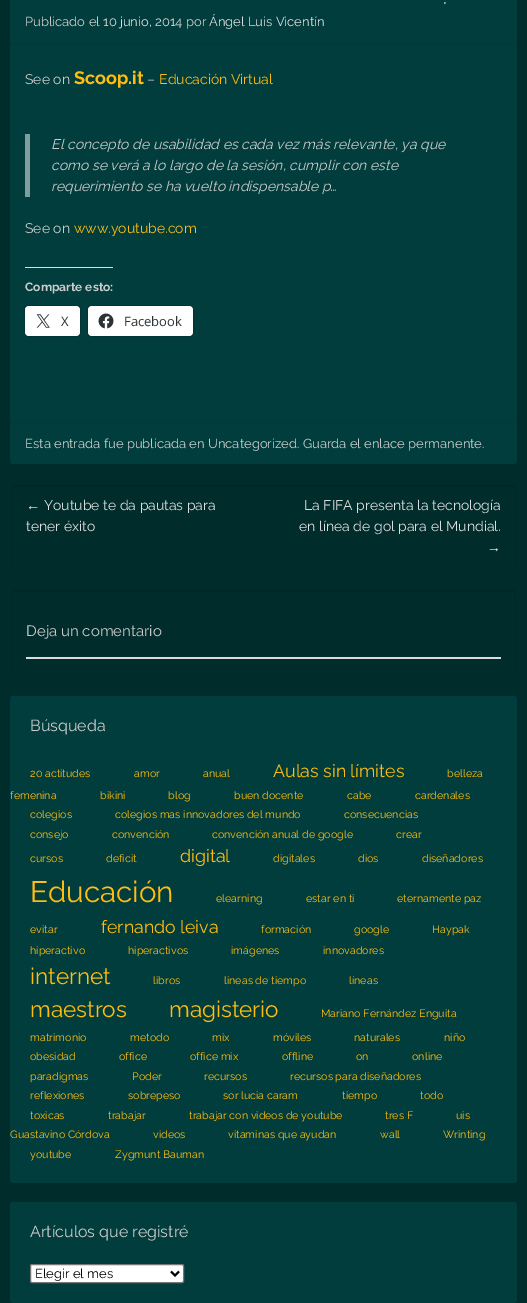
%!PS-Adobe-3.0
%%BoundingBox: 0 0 527 1303
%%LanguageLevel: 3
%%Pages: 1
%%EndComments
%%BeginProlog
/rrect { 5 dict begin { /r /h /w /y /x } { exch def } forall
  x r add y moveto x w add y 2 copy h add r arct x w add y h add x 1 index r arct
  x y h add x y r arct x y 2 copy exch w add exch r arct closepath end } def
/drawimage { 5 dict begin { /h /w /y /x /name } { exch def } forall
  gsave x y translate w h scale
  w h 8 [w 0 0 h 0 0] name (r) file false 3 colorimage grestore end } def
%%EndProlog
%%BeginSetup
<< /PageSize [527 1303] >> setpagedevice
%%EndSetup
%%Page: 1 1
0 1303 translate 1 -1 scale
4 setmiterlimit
0 0.173 0.169 setrgbcolor
0 0 527 1303 rectfill
0 0.239 0.235 setrgbcolor
10 -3 507 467 3 rrect fill
0.02 0.235 0.231 setrgbcolor
10 42 507 1 rectfill
0.008 0.224 0.22 setrgbcolor
10 43 507 1 rectfill
10 422 507 1 rectfill
0.502 0.62 0.62 setrgbcolor
25 134 5 63 rectfill
0.863 0.863 0.871 setrgbcolor
25 267 88 1 rectfill
0 0.212 0.208 setrgbcolor
24.5 305.5 56 31 4.5 rrect stroke
1 setgray
25 306 55 30 4 rrect fill
(images/1.raw) 36 314 14 14 drawimage
0 0.212 0.208 setrgbcolor
87.5 305.5 106 31 4.5 rrect stroke
1 setgray
88 306 105 30 4 rrect fill
(images/2.raw) 98 313 16 16 drawimage
0.02 0.235 0.231 setrgbcolor
10 423 507 1 rectfill
0 0.157 0.153 setrgbcolor
newpath 13 487 moveto 514 487 lineto 515 487 515 488 515 489 curveto 515 568 lineto 516 566 lineto 516 488 lineto 516 487 516 486 515 485 curveto 13 485 lineto 12 486 lineto 11 488 lineto 11 567 lineto 12 568 lineto 12 489 lineto 12 488 12 487 13 487 curveto closepath fill
newpath 13 592 moveto 514 592 lineto 515 592 515 593 515 594 curveto 515 674 lineto 516 672 lineto 516 593 lineto 516 592 516 591 515 590 curveto 13 590 lineto 12 591 lineto 11 593 lineto 11 673 lineto 12 674 lineto 12 594 lineto 12 593 12 592 13 592 curveto closepath fill
0.016 0.173 0.169 setrgbcolor
newpath 13 590 moveto 514 590 lineto 516 590 517 591 517 593 curveto 517 672 lineto 517 674 516 675 514 675 curveto 13 675 lineto 11 675 10 674 10 672 curveto 10 593 lineto 10 591 11 590 13 590 curveto closepath 13 590 moveto 514 590 lineto 515 590 516 591 516 593 curveto 516 672 lineto 516 673 515 674 514 674 curveto 13 674 lineto 12 674 11 673 11 672 curveto 11 593 lineto 11 591 12 590 13 590 curveto closepath eofill
0.863 0.863 0.871 setrgbcolor
26 657 475 2 rectfill
0 0.239 0.235 setrgbcolor
10 696 507 487 3 rrect fill
0.02 0.235 0.231 setrgbcolor
10 745 507 1 rectfill
0 0.239 0.235 setrgbcolor
10 1202 507 101 3 rrect fill
0.02 0.235 0.231 setrgbcolor
10 1251 507 1 rectfill
1 setgray
30.5 1264.5 153 18 1.5 rrect gsave fill grestore
0.463 setgray
stroke
0 setgray
2 setlinewidth
newpath 171 1271.5 moveto 175 1275.5 lineto 179 1271.5 lineto stroke
/Raleway-Regular [20 0 0 -20 0 0] selectfont
0.8 setgray
443 4 moveto (.) show
/Raleway-Regular [13 0 0 -13 0 0] selectfont
25 26 moveto (Publicado el) show
0.867 setgray
103 26 moveto (10 junio, 2014) show
0.8 setgray
186 26 moveto (por) show
0.867 setgray
209 26 moveto (Ángel Luis Vicentín) show
/Raleway-Regular [14 0 0 -14 0 0] selectfont
0.8 setgray
25 84 moveto (See on) show
/Raleway-Bold [18 0 0 -18 0 0] selectfont
1 0.737 0.067 setrgbcolor
74 84 moveto (Scoop.it) show
/Raleway-Regular [14 0 0 -14 0 0] selectfont
0.8 setgray
147 84 moveto (–) show
1 0.737 0.067 setrgbcolor
159 84 moveto (Educación Virtual) show
/Raleway-Italic [14 0 0 -14 0 0] selectfont
0.8 setgray
51 149 moveto (El concepto de usabilidad es cada vez más relevante, ya que) show
51 170 moveto (como se verá a lo largo de la sesión, cumplir con este) show
51 191 moveto (requerimiento se ha vuelto indispensable p…) show
/Raleway-Regular [14 0 0 -14 0 0] selectfont
25 233 moveto (See on) show
1 0.737 0.067 setrgbcolor
74 233 moveto (www.youtube.com) show
/Raleway-Bold [12 0 0 -12 0 0] selectfont
0.8 setgray
25 291 moveto (Comparte esto:) show
/OpenSans-Regular [13 0 0 -13 0 0] selectfont
0.173 0.2 0.22 setrgbcolor
61 326 moveto (X) show
124 326 moveto (Facebook) show
/Raleway-Regular [13 0 0 -13 0 0] selectfont
0.8 setgray
25 448 moveto (Esta entrada fue publicada en Uncategorized. Guarda el enlace permanente.) show
/LiberationSans-Regular [14 0 0 -14 0 0] selectfont
0.867 setgray
26 510 moveto (←) show
/Raleway-Regular [14 0 0 -14 0 0] selectfont
44 510 moveto (Youtube te da pautas para) show
26 531 moveto (tener éxito) show
304 510 moveto (La FIFA presenta la tecnología) show
299 531 moveto (en línea de gol para el Mundial.) show
/LiberationSans-Regular [14 0 0 -14 0 0] selectfont
487 552 moveto (→) show
/Raleway-Regular [15 0 0 -15 0 0] selectfont
0.8 setgray
26 636 moveto (Deja un comentario) show
/Raleway-Regular [16 0 0 -16 0 0] selectfont
30 731 moveto (Búsqueda) show
/Raleway-Regular [10.7 0 0 -10.7 0 0] selectfont
1 0.737 0.067 setrgbcolor
30 777 moveto (20 actitudes) show
134 777 moveto (amor) show
203 777 moveto (anual) show
/Raleway-Regular [17.75 0 0 -17.75 0 0] selectfont
273 777 moveto (Aulas sin límites) show
/Raleway-Regular [10.7 0 0 -10.7 0 0] selectfont
447 777 moveto (belleza) show
10 799 moveto (femenina) show
100 799 moveto (bikini) show
168 799 moveto (blog) show
234 799 moveto (buen docente) show
347 799 moveto (cabe) show
415 799 moveto (cardenales) show
30 818 moveto (colegios) show
115 818 moveto (colegios mas innovadores del mundo) show
344 818 moveto (consecuencias) show
30 838 moveto (consejo) show
112 838 moveto (convención) show
212 838 moveto (convención anual de google) show
396 838 moveto (crear) show
30 862 moveto (cursos) show
106 862 moveto (deficit) show
/Raleway-Regular [17.75 0 0 -17.75 0 0] selectfont
180 862 moveto (digital) show
/Raleway-Regular [10.7 0 0 -10.7 0 0] selectfont
273 862 moveto (digitales) show
358 862 moveto (dios) show
422 862 moveto (diseñadores) show
/Raleway-Regular [29.5 0 0 -29.5 0 0] selectfont
30 902 moveto (Educación) show
/Raleway-Regular [10.7 0 0 -10.7 0 0] selectfont
216 902 moveto (elearning) show
306 902 moveto (estar en ti) show
397 902 moveto (eternamente paz) show
30 933 moveto (evitar) show
/Raleway-Regular [17.75 0 0 -17.75 0 0] selectfont
101 933 moveto (fernando leiva) show
/Raleway-Regular [10.7 0 0 -10.7 0 0] selectfont
261 933 moveto (formación) show
354 933 moveto (google) show
432 933 moveto (Haypak) show
30 954 moveto (hiperactivo) show
128 954 moveto (hiperactivos) show
231 954 moveto (imágenes) show
323 954 moveto (innovadores) show
/Raleway-Regular [22.5 0 0 -22.5 0 0] selectfont
30 984 moveto (internet) show
/Raleway-Regular [10.7 0 0 -10.7 0 0] selectfont
153 984 moveto (libros) show
224 984 moveto (lineas de tiempo) show
349 984 moveto (líneas) show
/Raleway-Regular [22.5 0 0 -22.5 0 0] selectfont
30 1017 moveto (maestros) show
169 1017 moveto (magisterio) show
/Raleway-Regular [10.7 0 0 -10.7 0 0] selectfont
321 1017 moveto (Mariano Fernández Enguita) show
30 1041 moveto (matrimonio) show
130 1041 moveto (metodo) show
212 1041 moveto (mix) show
273 1041 moveto (móviles) show
354 1041 moveto (naturales) show
444 1041 moveto (niño) show
30 1060 moveto (obesidad) show
119 1060 moveto (office) show
190 1060 moveto (office mix) show
282 1060 moveto (offline) show
356 1060 moveto (on) show
412 1060 moveto (online) show
30 1080 moveto (paradigmas) show
132 1080 moveto (Poder) show
204 1080 moveto (recursos) show
290 1080 moveto (recursos para diseñadores) show
30 1099 moveto (reflexiones) show
128 1099 moveto (sobrepeso) show
223 1099 moveto (sor lucia caram) show
342 1099 moveto (tiempo) show
420 1099 moveto (todo) show
30 1119 moveto (toxicas) show
108 1119 moveto (trabajar) show
189 1119 moveto (trabajar con videos de youtube) show
385 1119 moveto (tres F) show
456 1119 moveto (uis) show
10 1138 moveto (Guastavino Córdova) show
153 1138 moveto (videos) show
228 1138 moveto (vitaminas que ayudan) show
380 1138 moveto (wall) show
443 1138 moveto (Wrinting) show
30 1158 moveto (youtube) show
115 1158 moveto (Zygmunt Bauman) show
/Raleway-Regular [16 0 0 -16 0 0] selectfont
0.8 setgray
30 1237 moveto (Artículos que registré) show
/Raleway-Regular [13 0 0 -13 0 0] selectfont
0 setgray
35 1278 moveto (Elegir el mes) show
showpage
%%EOF
